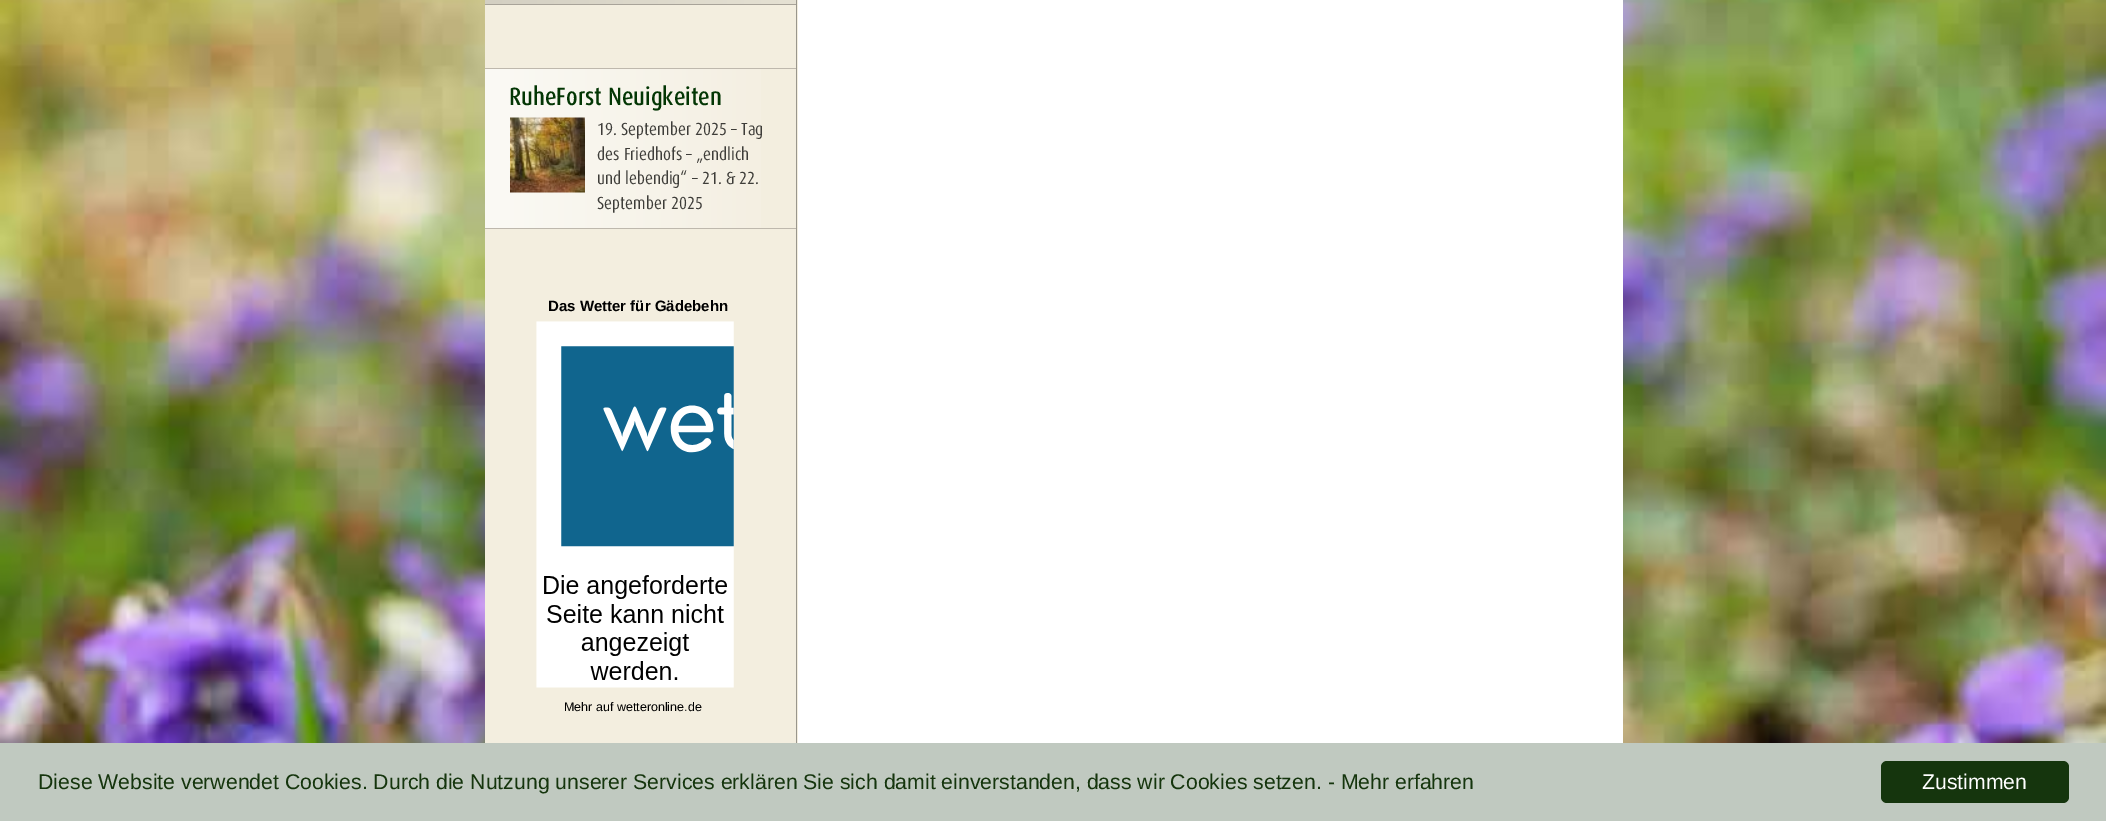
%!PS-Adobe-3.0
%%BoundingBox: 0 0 2106 821
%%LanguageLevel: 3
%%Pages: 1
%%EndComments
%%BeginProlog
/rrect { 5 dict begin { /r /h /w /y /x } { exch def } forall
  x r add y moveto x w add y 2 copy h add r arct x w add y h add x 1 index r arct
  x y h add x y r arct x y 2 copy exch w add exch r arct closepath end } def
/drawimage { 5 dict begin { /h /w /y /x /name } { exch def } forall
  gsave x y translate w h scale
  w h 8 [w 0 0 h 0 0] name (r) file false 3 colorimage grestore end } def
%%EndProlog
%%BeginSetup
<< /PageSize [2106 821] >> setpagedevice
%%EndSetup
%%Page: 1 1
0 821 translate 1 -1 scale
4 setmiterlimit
1 setgray
0 0 2106 821 rectfill
(images/1.raw) 0 0 2106 743 drawimage
0.953 0.933 0.875 setrgbcolor
485 0 313 743 rectfill
0.6 0.588 0.553 setrgbcolor
796 0 1 743 rectfill
gsave newpath 485 0 moveto 796 0 lineto 796 4 lineto 485 4 lineto closepath clip newpath
<< /ShadingType 2 /ColorSpace /DeviceRGB /Coords [485 -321 796 -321] /Extend [true true] /Function << /FunctionType 2 /Domain [0 1] /C0 [0.827 0.812 0.761] /C1 [0.898 0.882 0.827] /N 1 >> >> shfill grestore
0.659 0.639 0.6 setrgbcolor
485 4 311 1 rectfill
gsave newpath 485 69 moveto 761 69 lineto 761 228 lineto 485 228 lineto closepath clip newpath
<< /ShadingType 2 /ColorSpace /DeviceRGB /Coords [485 148 796 148] /Extend [true true] /Function << /FunctionType 2 /Domain [0 1] /C0 [0.984 0.98 0.961] /C1 [0.953 0.933 0.875] /N 1 >> >> shfill grestore
0.745 0.722 0.678 setrgbcolor
485 68 311 1 rectfill
485 228 311 1 rectfill
(images/2.raw) 510 117 75 76 drawimage
(images/3.raw) 536 321 198 367 drawimage
1 setgray
798 0 825 743 rectfill
0.753 0.788 0.753 setrgbcolor
0 743 2106 78 rectfill
0.082 0.208 0.051 setrgbcolor
1881 761 188 42 6 rrect fill
/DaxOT-Medium [25 0 0 -25 0 0] selectfont
0.012 0.212 0.016 setrgbcolor
509 105 moveto (RuheForst Neuigkeiten) show
/DaxOT-Regular [17.5 0 0 -17.5 0 0] selectfont
0.243 0.239 0.224 setrgbcolor
597 135 moveto (19. September 2025 – Tag) show
597 160 moveto (des Friedhofs – „endlich) show
597 184 moveto (und lebendig“ – 21. & 22.) show
597 209 moveto (September 2025) show
/LiberationSans-Bold [15 0 0 -15 0 0] selectfont
0 setgray
548 311 moveto (Das Wetter für Gädebehn) show
/LiberationSans-Regular [12.5 0 0 -12.5 0 0] selectfont
564 711 moveto (Mehr auf wetteronline.de) show
/LiberationSans-Regular [21.25 0 0 -21.25 0 0] selectfont
0.082 0.208 0.051 setrgbcolor
38 789 moveto (Diese Website verwendet Cookies. Durch die Nutzung unserer Services erklären Sie sich damit einverstanden, dass wir Cookies setzen. - Mehr erfahren) show
1 setgray
1922 789 moveto (Zustimmen) show
showpage
%%EOF
